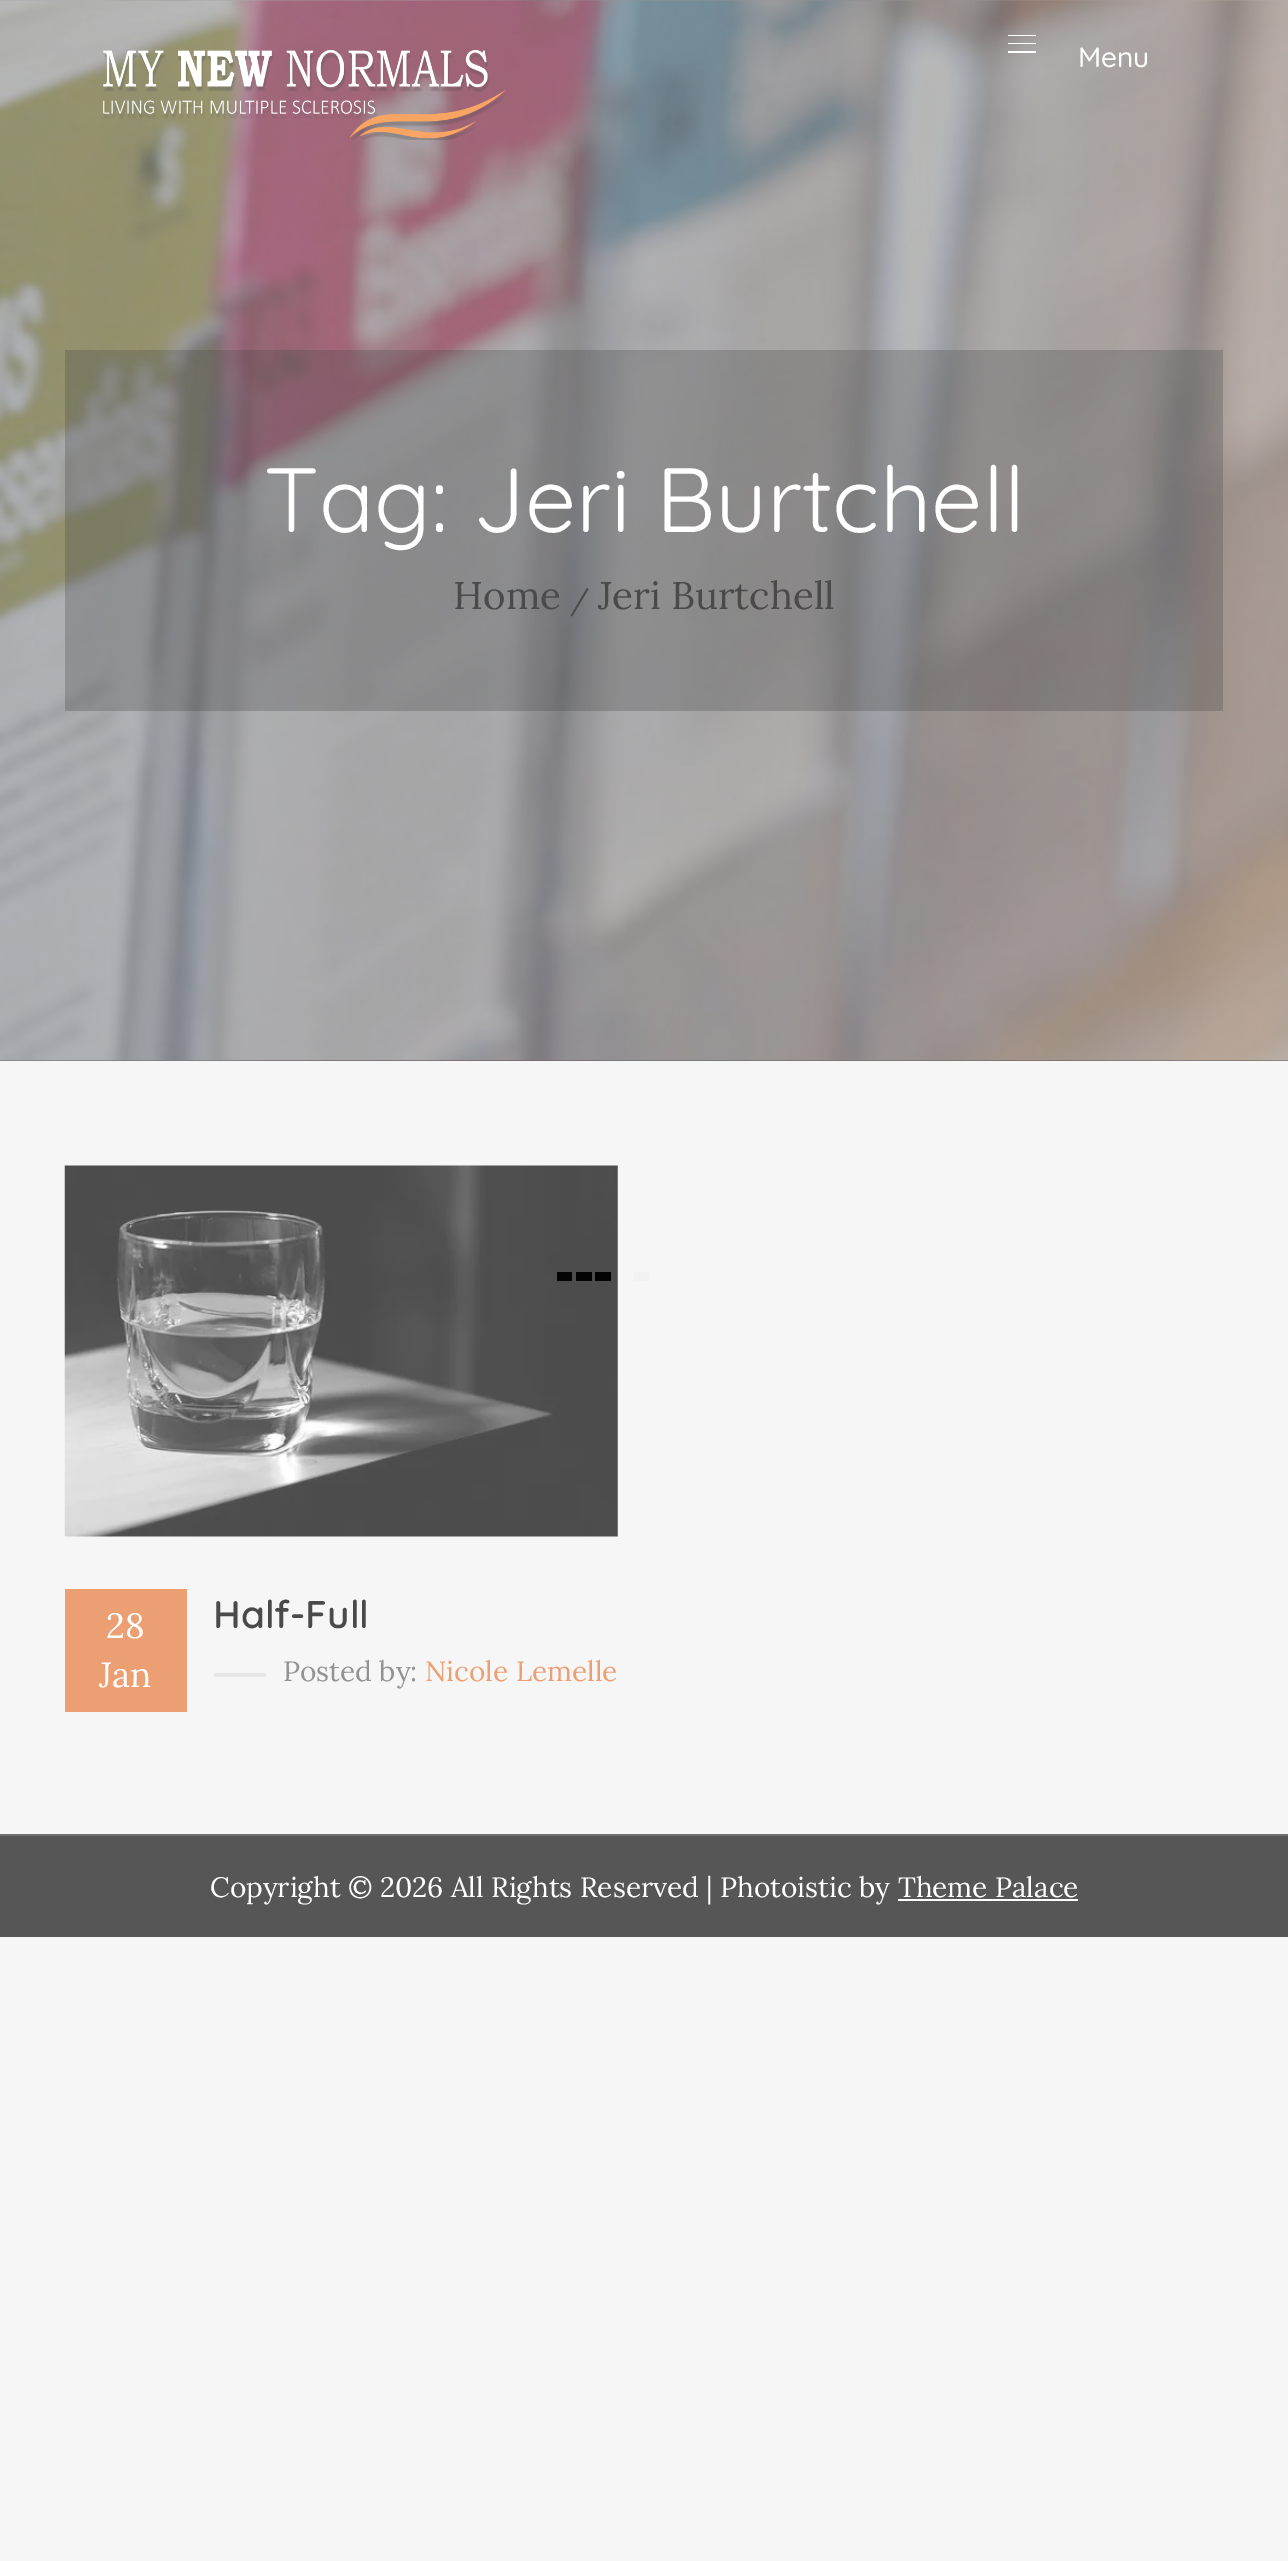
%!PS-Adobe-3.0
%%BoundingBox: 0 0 1288 2561
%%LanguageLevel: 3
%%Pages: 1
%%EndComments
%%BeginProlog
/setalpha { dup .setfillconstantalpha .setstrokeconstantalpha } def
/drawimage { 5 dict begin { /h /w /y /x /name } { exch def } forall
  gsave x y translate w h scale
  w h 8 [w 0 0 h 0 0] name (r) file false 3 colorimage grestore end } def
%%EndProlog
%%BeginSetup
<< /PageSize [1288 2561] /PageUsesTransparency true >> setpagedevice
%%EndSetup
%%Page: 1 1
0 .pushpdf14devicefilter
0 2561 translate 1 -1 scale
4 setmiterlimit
0.965 setgray
0 0 1288 2561 rectfill
0.376 setgray
0 1060 1288 1 rectfill
(images/2.raw) 0 0 1288 1061 drawimage
(images/1.raw) 103 50 403 90 drawimage
1 setgray
1008 35 28 1 rectfill
1008 43 28 1 rectfill
1008 51 28 2 rectfill
0.3 setalpha
0.29 setgray
65 350 1158 361 rectfill
1 setalpha
(images/3.raw) 64 1165 554 372 drawimage
0.925 0.624 0.447 setrgbcolor
65 1589 122 123 rectfill
0.906 setgray
214 1673 52 4 rectfill
0.016 setgray
557 1272 15 9 rectfill
0.012 setgray
576 1272 16 9 rectfill
595 1272 16 9 rectfill
0.949 setgray
634 1272 15 9 rectfill
0.337 setgray
0 1836 1288 101 rectfill
0.439 setgray
0 1834 1288 2 rectfill
1 setgray
898 1899 180 2 rectfill
/Quicksand-Medium [28 0 0 -28 0 0] selectfont
1078 67 moveto (Menu) show
/Quicksand-Regular [91 0 0 -91 0 0] selectfont
264 532 moveto (Tag: Jeri Burtchell) show
/Lora-Regular [38.5 0 0 -38.5 0 0] selectfont
0.29 setgray
453 609 moveto (Home) show
/Lora-Regular [28 0 0 -28 0 0] selectfont
570 609 moveto (/) show
/Lora-Regular [38.5 0 0 -38.5 0 0] selectfont
598 609 moveto (Jeri Burtchell) show
/Lora-Regular [35 0 0 -35 0 0] selectfont
1 setgray
106 1638 moveto (28) show
99 1687 moveto (Jan) show
/Quicksand-SemiBold [38.5 0 0 -38.5 0 0] selectfont
0.29 setgray
213 1628 moveto (Half-Full) show
/Lora-Regular [28 0 0 -28 0 0] selectfont
0.573 setgray
283 1681 moveto (Posted by:) show
0.925 0.624 0.447 setrgbcolor
425 1681 moveto (Nicole Lemelle) show
1 setgray
210 1897 moveto (Copyright © 2026 All Rights Reserved | Photoistic by Theme Palace) show
.poppdf14devicefilter showpage
%%EOF
